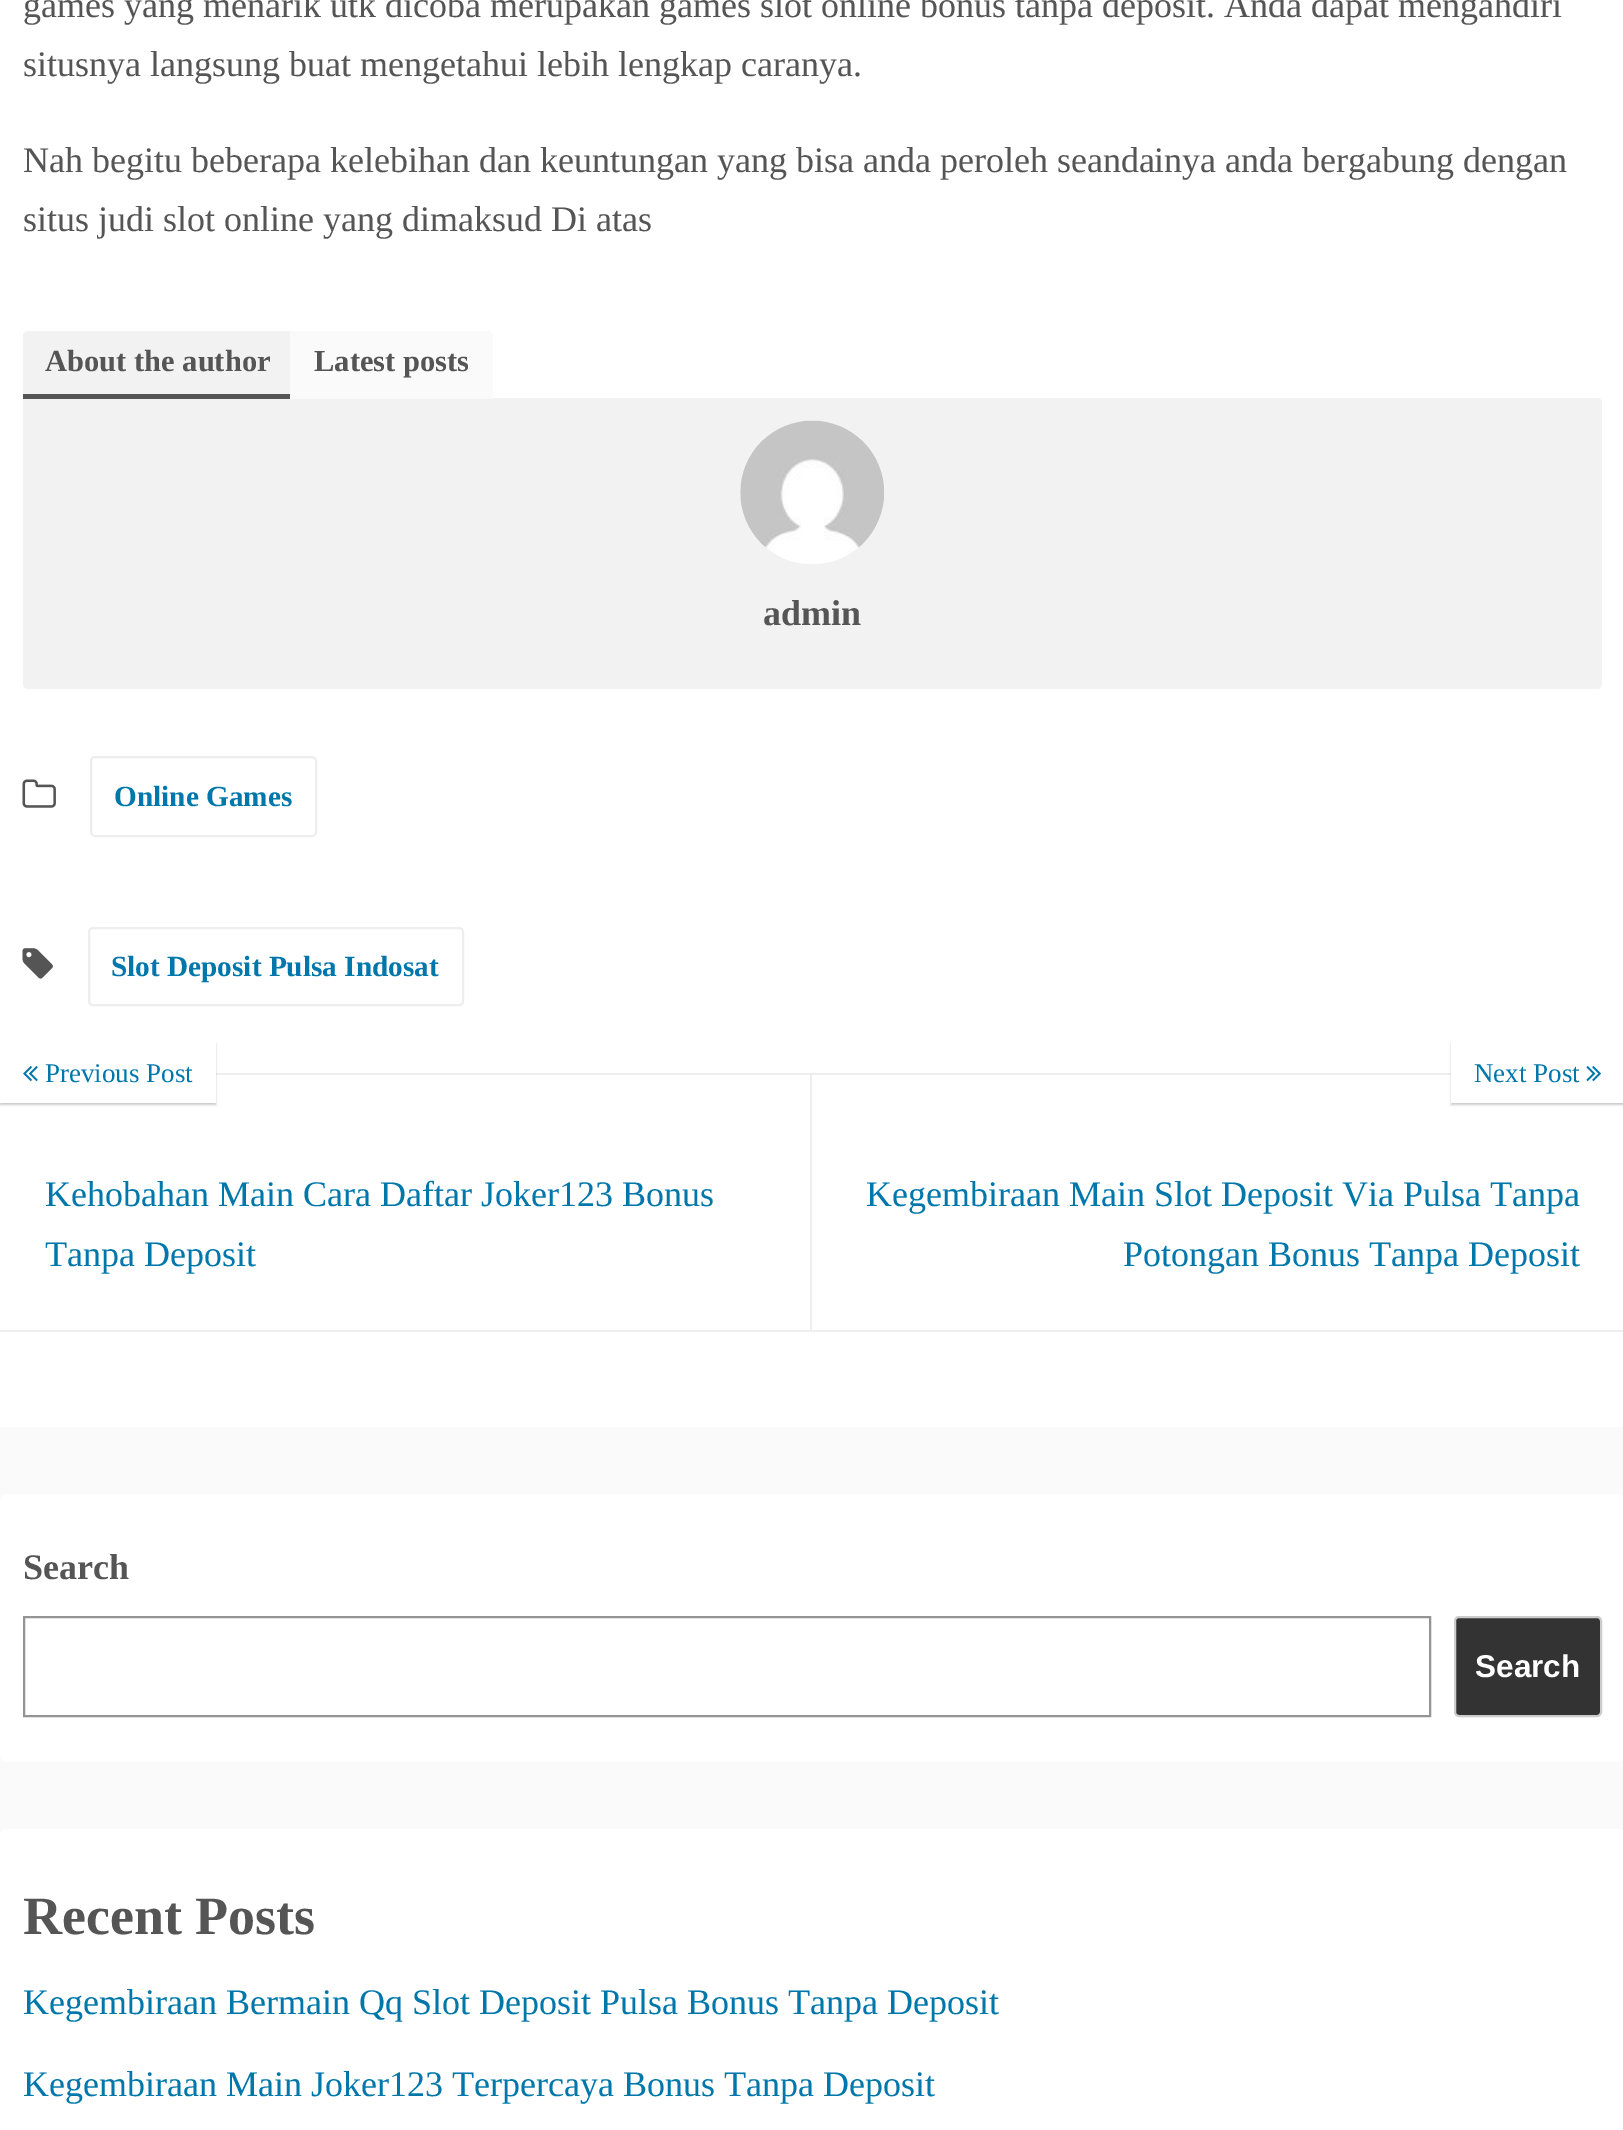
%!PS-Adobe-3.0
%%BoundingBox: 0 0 1623 2130
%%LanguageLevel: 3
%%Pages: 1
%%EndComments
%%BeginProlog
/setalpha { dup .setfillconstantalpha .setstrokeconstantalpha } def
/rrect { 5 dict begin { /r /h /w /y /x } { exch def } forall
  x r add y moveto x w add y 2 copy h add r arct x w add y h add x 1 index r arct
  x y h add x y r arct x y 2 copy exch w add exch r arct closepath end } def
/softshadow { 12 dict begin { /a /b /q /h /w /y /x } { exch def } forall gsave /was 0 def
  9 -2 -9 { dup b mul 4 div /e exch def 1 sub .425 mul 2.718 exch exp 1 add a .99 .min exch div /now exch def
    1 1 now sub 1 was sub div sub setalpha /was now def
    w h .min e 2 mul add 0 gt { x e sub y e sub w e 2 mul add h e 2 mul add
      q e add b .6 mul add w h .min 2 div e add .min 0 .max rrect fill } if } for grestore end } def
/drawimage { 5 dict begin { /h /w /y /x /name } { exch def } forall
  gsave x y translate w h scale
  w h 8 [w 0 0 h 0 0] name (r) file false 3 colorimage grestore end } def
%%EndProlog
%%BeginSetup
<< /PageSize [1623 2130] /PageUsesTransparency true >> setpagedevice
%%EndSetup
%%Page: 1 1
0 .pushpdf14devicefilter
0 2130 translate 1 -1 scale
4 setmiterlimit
0.98 setgray
0 0 1623 2130 rectfill
1 setgray
0 0 1623 1427 rectfill
0.949 setgray
newpath 28 331 moveto 293 331 lineto 293 398 lineto 23 398 lineto 23 336 lineto 23 333 25 331 28 331 curveto closepath fill
newpath 23 398 moveto 1597 398 lineto 1600 398 1602 400 1602 403 curveto 1602 684 lineto 1602 687 1600 689 1597 689 curveto 28 689 lineto 25 689 23 687 23 684 curveto closepath fill
0.333 setgray
23 394 270 5 rectfill
0.98 setgray
newpath 290 331 moveto 488 331 lineto 491 331 493 333 493 336 curveto 493 398 lineto 290 398 lineto closepath fill
290 398 203 1 rectfill
(images/1.raw) 740 420 144 144 drawimage
(images/2.raw) 22 779 34 29 drawimage
0.933 setgray
2 setlinewidth
91 757 225 79 4 rrect stroke
(images/3.raw) 22 948 31 31 drawimage
89 928 374 77 4 rrect stroke
216 1073 1235 2 rectfill
810 1073 2 259 rectfill
0 1330 1623 2 rectfill
0 setgray
0 1044 216 61 0 1 0.2 softshadow
1 setgray
0 1042 216 61 rectfill
(images/4.raw) 23 1066 15 16 drawimage
0 setgray
1451 1044 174 61 0 1 0.2 softshadow
1 setgray
1451 1042 172 61 rectfill
(images/5.raw) 1586 1066 15 16 drawimage
0 1494 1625 268 7 rrect fill
0.58 setgray
24 1617 1406 99 rectstroke
0.2 setgray
1455 1617 146 99 4 rrect gsave fill grestore
0.8 setgray
stroke
1 setgray
0 1829 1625 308 7 rrect fill
/LiberationSerif-Regular [36 0 0 -36 0 0] selectfont
0.333 setgray
23 17 moveto (games yang menarik utk dicoba merupakan games slot online bonus tanpa deposit. Anda dapat mengahdiri) show
23 76 moveto (situsnya langsung buat mengetahui lebih lengkap caranya.) show
23 172 moveto (Nah begitu beberapa kelebihan dan keuntungan yang bisa anda peroleh seandainya anda bergabung dengan) show
23 231 moveto (situs judi slot online yang dimaksud Di atas) show
/LiberationSerif-Bold [30.5 0 0 -30.5 0 0] selectfont
45 371 moveto (About the author) show
314 371 moveto (Latest posts) show
/LiberationSerif-Bold [36 0 0 -36 0 0] selectfont
763 625 moveto (admin) show
/LiberationSerif-Bold [29.25 0 0 -29.25 0 0] selectfont
0 0.467 0.667 setrgbcolor
114 806 moveto (Online Games) show
111 976 moveto (Slot Deposit Pulsa Indosat) show
/LiberationSerif-Regular [27 0 0 -27 0 0] selectfont
45 1082 moveto (Previous Post) show
/LiberationSerif-Regular [36 0 0 -36 0 0] selectfont
45 1206 moveto (Kehobahan Main Cara Daftar Joker123 Bonus) show
45 1266 moveto (Tanpa Deposit) show
/LiberationSerif-Regular [27 0 0 -27 0 0] selectfont
1474 1082 moveto (Next Post) show
/LiberationSerif-Regular [36 0 0 -36 0 0] selectfont
866 1206 moveto (Kegembiraan Main Slot Deposit Via Pulsa Tanpa) show
1123 1266 moveto (Potongan Bonus Tanpa Deposit) show
/LiberationSerif-Bold [36 0 0 -36 0 0] selectfont
0.333 setgray
23 1579 moveto (Search) show
/LiberationSans-Bold [31.5 0 0 -31.5 0 0] selectfont
1 setgray
1475 1677 moveto (Search) show
/LiberationSerif-Bold [54 0 0 -54 0 0] selectfont
0.333 setgray
23 1934 moveto (Recent Posts) show
/LiberationSerif-Regular [36 0 0 -36 0 0] selectfont
0 0.467 0.667 setrgbcolor
23 2014 moveto (Kegembiraan Bermain Qq Slot Deposit Pulsa Bonus Tanpa Deposit) show
23 2096 moveto (Kegembiraan Main Joker123 Terpercaya Bonus Tanpa Deposit) show
.poppdf14devicefilter showpage
%%EOF
